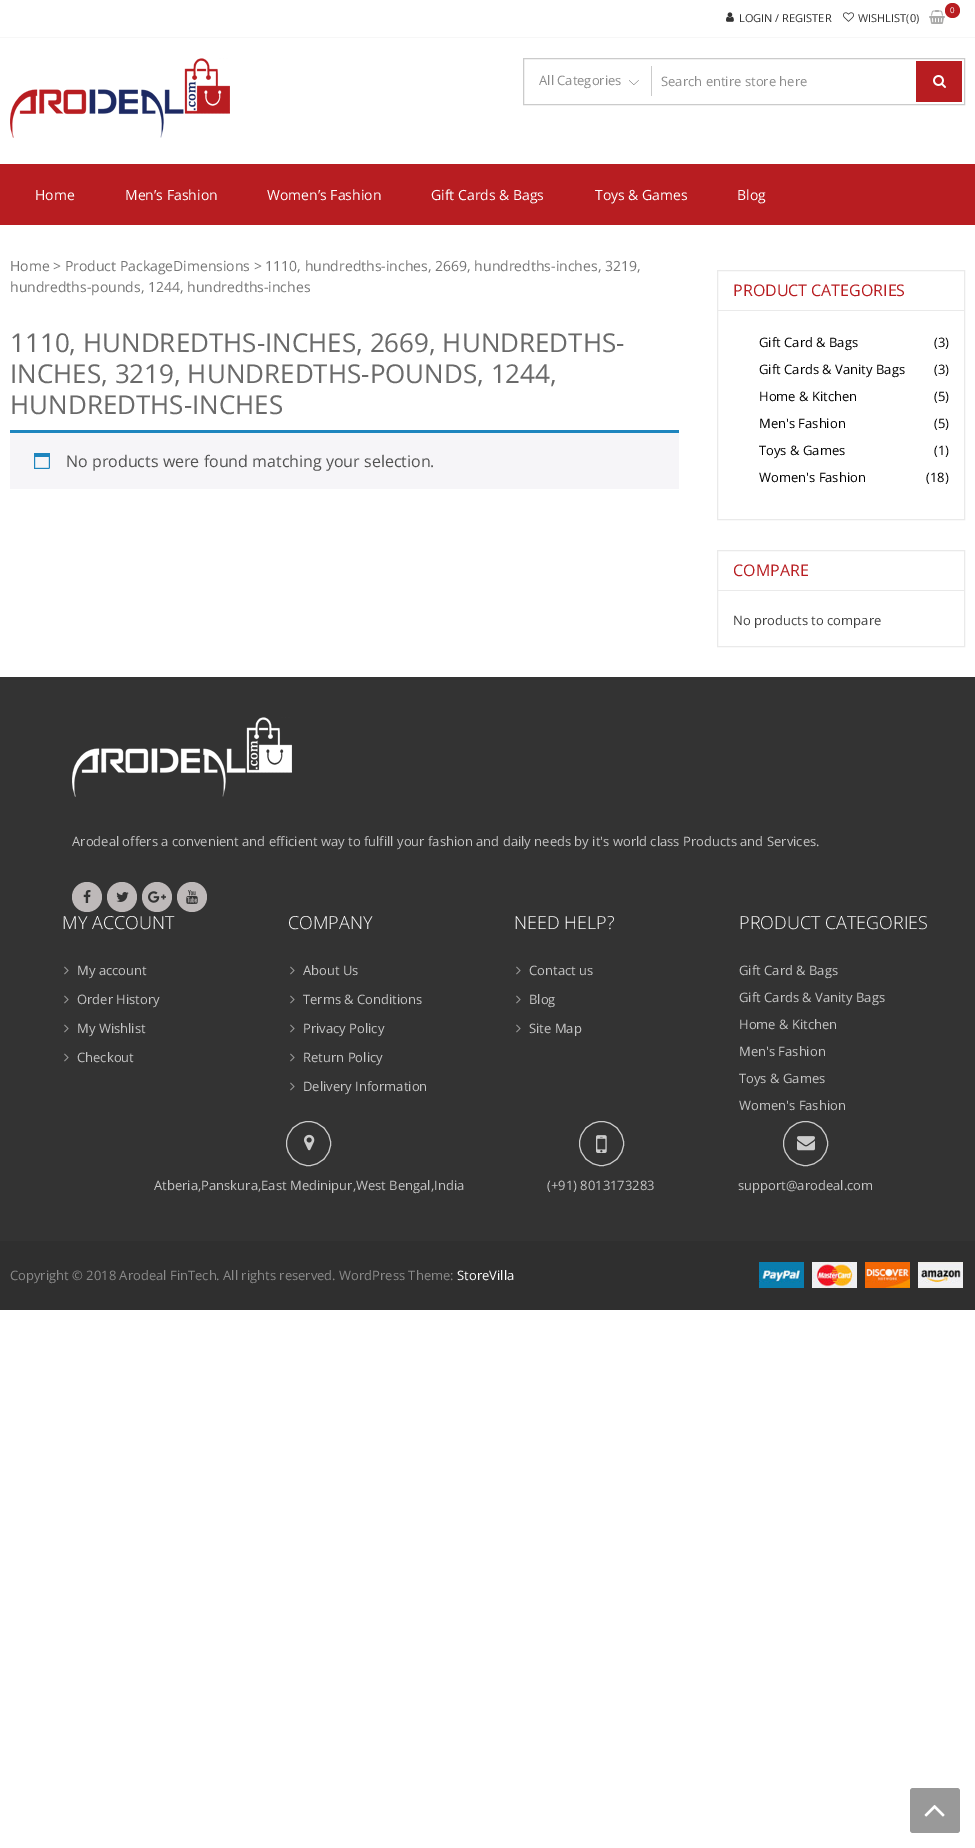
%!PS-Adobe-3.0
%%BoundingBox: 0 0 975 1848
%%LanguageLevel: 3
%%Pages: 1
%%EndComments
%%BeginProlog
/rrect { 5 dict begin { /r /h /w /y /x } { exch def } forall
  x r add y moveto x w add y 2 copy h add r arct x w add y h add x 1 index r arct
  x y h add x y r arct x y 2 copy exch w add exch r arct closepath end } def
/drawimage { 5 dict begin { /h /w /y /x /name } { exch def } forall
  gsave x y translate w h scale
  w h 8 [w 0 0 h 0 0] name (r) file false 3 colorimage grestore end } def
%%EndProlog
%%BeginSetup
<< /PageSize [975 1848] >> setpagedevice
%%EndSetup
%%Page: 1 1
0 1848 translate 1 -1 scale
4 setmiterlimit
1 setgray
0 0 975 1848 rectfill
0.969 setgray
0 37 975 1 rectfill
(images/1.raw) 929 10 16 14 drawimage
0.722 0.114 0.129 setrgbcolor
newpath 952.5 10.5 7.5 0 360 arc closepath fill
(images/2.raw) 726 12 8 10 drawimage
(images/3.raw) 843 12 11 10 drawimage
(images/4.raw) 10 58 220 80 drawimage
0.796 setgray
523.5 58.5 441 46 rectstroke
(images/5.raw) 629 80 10 5 drawimage
651 66 1 30 rectfill
0.722 0.114 0.129 setrgbcolor
916 61 46 41 rectfill
(images/6.raw) 933 75 13 13 drawimage
0 164 975 61 rectfill
0.965 0.961 0.973 setrgbcolor
10 433 669 56 rectfill
0.118 0.522 0.745 setrgbcolor
10 430 669 3 rectfill
(images/7.raw) 34 453 16 16 drawimage
0.918 setgray
717.5 270.5 247 249 rectstroke
718 310 246 1 rectfill
717.5 550.5 247 96 rectstroke
718 590 246 1 rectfill
0.2 setgray
0 677 975 564 rectfill
(images/8.raw) 72 717 220 80 drawimage
0.745 0.725 0.725 setrgbcolor
newpath 87 897 15 0 360 arc closepath fill
(images/9.raw) 83 890 8 13 drawimage
newpath 122 897 15 0 360 arc closepath fill
(images/10.raw) 116 892 13 10 drawimage
newpath 157 897 15 0 360 arc closepath fill
(images/11.raw) 148 891 18 12 drawimage
newpath 192 897 15 0 360 arc closepath fill
(images/12.raw) 186 890 12 14 drawimage
(images/13.raw) 64 966 5 9 drawimage
(images/13.raw) 64 995 5 9 drawimage
(images/13.raw) 64 1024 5 9 drawimage
(images/13.raw) 64 1053 5 9 drawimage
(images/13.raw) 290 966 5 9 drawimage
(images/13.raw) 290 995 5 9 drawimage
(images/13.raw) 290 1024 5 9 drawimage
(images/13.raw) 290 1053 5 9 drawimage
(images/13.raw) 290 1082 5 9 drawimage
(images/13.raw) 516 966 5 9 drawimage
(images/13.raw) 516 995 5 9 drawimage
(images/13.raw) 516 1024 5 9 drawimage
0.8 setgray
newpath 308.5 1143.5 22 0 360 arc closepath stroke
(images/14.raw) 304 1134 11 17 drawimage
newpath 601.5 1143.5 22 0 360 arc closepath stroke
(images/15.raw) 596 1135 11 18 drawimage
newpath 805.5 1143.5 22 0 360 arc closepath stroke
(images/16.raw) 797 1136 18 15 drawimage
0.184 setgray
0 1241 975 69 rectfill
(images/17.raw) 759 1262 45 26 drawimage
(images/18.raw) 812 1262 45 26 drawimage
(images/19.raw) 865 1262 45 26 drawimage
(images/20.raw) 918 1262 45 26 drawimage
0.6 setgray
910 1788 50 45 3 rrect fill
(images/21.raw) 924 1805 21 12 drawimage
/OpenSans-Regular [8 0 0 -8 0 0] selectfont
1 setgray
950 13 moveto (0) show
/OpenSans-Regular [11 0 0 -11 0 0] selectfont
0.2 setgray
739 22 moveto (LOGIN / REGISTER) show
858 22 moveto (WISHLIST\(0\)) show
/OpenSans-Regular [13 0 0 -13 0 0] selectfont
0.545 setgray
539 85 moveto (All Categories) show
661 86 moveto (Search entire store here) show
/OpenSans-Regular [14 0 0 -14 0 0] selectfont
1 setgray
35 200 moveto (Home) show
125 200 moveto (Men’s Fashion) show
267 200 moveto (Women’s Fashion) show
431 200 moveto (Gift Cards & Bags) show
595 200 moveto (Toys & Games) show
737 200 moveto (Blog) show
0.463 setgray
10 271 moveto (Home) show
53 271 moveto (> Product PackageDimensions > 1110, hundredths-inches, 2669, hundredths-inches, 3219,) show
10 292 moveto (hundredths-pounds, 1244, hundredths-inches) show
/OpenSans-Regular [26 0 0 -26 0 0] selectfont
0.416 setgray
10 352 moveto (1110, HUNDREDTHS-INCHES, 2669, HUNDREDTHS-) show
10 383 moveto (INCHES, 3219, HUNDREDTHS-POUNDS, 1244,) show
10 414 moveto (HUNDREDTHS-INCHES) show
/OpenSans-Regular [16 0 0 -16 0 0] selectfont
0.318 setgray
66 467 moveto (No products were found matching your selection.) show
0.722 0.114 0.129 setrgbcolor
733 296 moveto (PRODUCT CATEGORIES) show
/OpenSans-Regular [13 0 0 -13 0 0] selectfont
0 setgray
759 347 moveto (Gift Card & Bags) show
934 347 moveto (\(3\)) show
759 374 moveto (Gift Cards & Vanity Bags) show
934 374 moveto (\(3\)) show
759 401 moveto (Home & Kitchen) show
934 401 moveto (\(5\)) show
759 428 moveto (Men's Fashion) show
934 428 moveto (\(5\)) show
759 455 moveto (Toys & Games) show
934 455 moveto (\(1\)) show
759 482 moveto (Women's Fashion) show
926 482 moveto (\(18\)) show
/OpenSans-Regular [16 0 0 -16 0 0] selectfont
0.722 0.114 0.129 setrgbcolor
733 576 moveto (COMPARE) show
/OpenSans-Regular [13 0 0 -13 0 0] selectfont
0.251 setgray
733 625 moveto (No products to compare) show
0.776 setgray
72 846 moveto (Arodeal offers a convenient and efficient way to fulfill your fashion and daily needs by it's world class Products and Services.) show
/OpenSans-Light [18 0 0 -18 0 0] selectfont
1 setgray
62 929 moveto (MY ACCOUNT) show
/OpenSans-Regular [13 0 0 -13 0 0] selectfont
0.776 setgray
77 975 moveto (My account) show
77 1004 moveto (Order History) show
77 1033 moveto (My Wishlist) show
77 1062 moveto (Checkout) show
/OpenSans-Light [18 0 0 -18 0 0] selectfont
1 setgray
288 929 moveto (COMPANY) show
/OpenSans-Regular [13 0 0 -13 0 0] selectfont
0.776 setgray
303 975 moveto (About Us) show
303 1004 moveto (Terms & Conditions) show
303 1033 moveto (Privacy Policy) show
303 1062 moveto (Return Policy) show
303 1091 moveto (Delivery Information) show
/OpenSans-Light [18 0 0 -18 0 0] selectfont
1 setgray
514 929 moveto (NEED HELP?) show
/OpenSans-Regular [13 0 0 -13 0 0] selectfont
0.776 setgray
529 975 moveto (Contact us) show
529 1004 moveto (Blog) show
529 1033 moveto (Site Map) show
/OpenSans-Light [18 0 0 -18 0 0] selectfont
1 setgray
739 929 moveto (PRODUCT CATEGORIES) show
/OpenSans-Regular [13 0 0 -13 0 0] selectfont
0.776 setgray
739 975 moveto (Gift Card & Bags) show
739 1002 moveto (Gift Cards & Vanity Bags) show
739 1029 moveto (Home & Kitchen) show
739 1056 moveto (Men's Fashion) show
739 1083 moveto (Toys & Games) show
739 1110 moveto (Women's Fashion) show
154 1190 moveto (Atberia,Panskura,East Medinipur,West Bengal,India) show
547 1190 moveto (\(+91\) 8013173283) show
738 1190 moveto (support@arodeal.com) show
0.545 setgray
10 1280 moveto (Copyright © 2018 Arodeal FinTech. All rights reserved. WordPress Theme:) show
1 setgray
457 1280 moveto (StoreVilla) show
showpage
%%EOF
